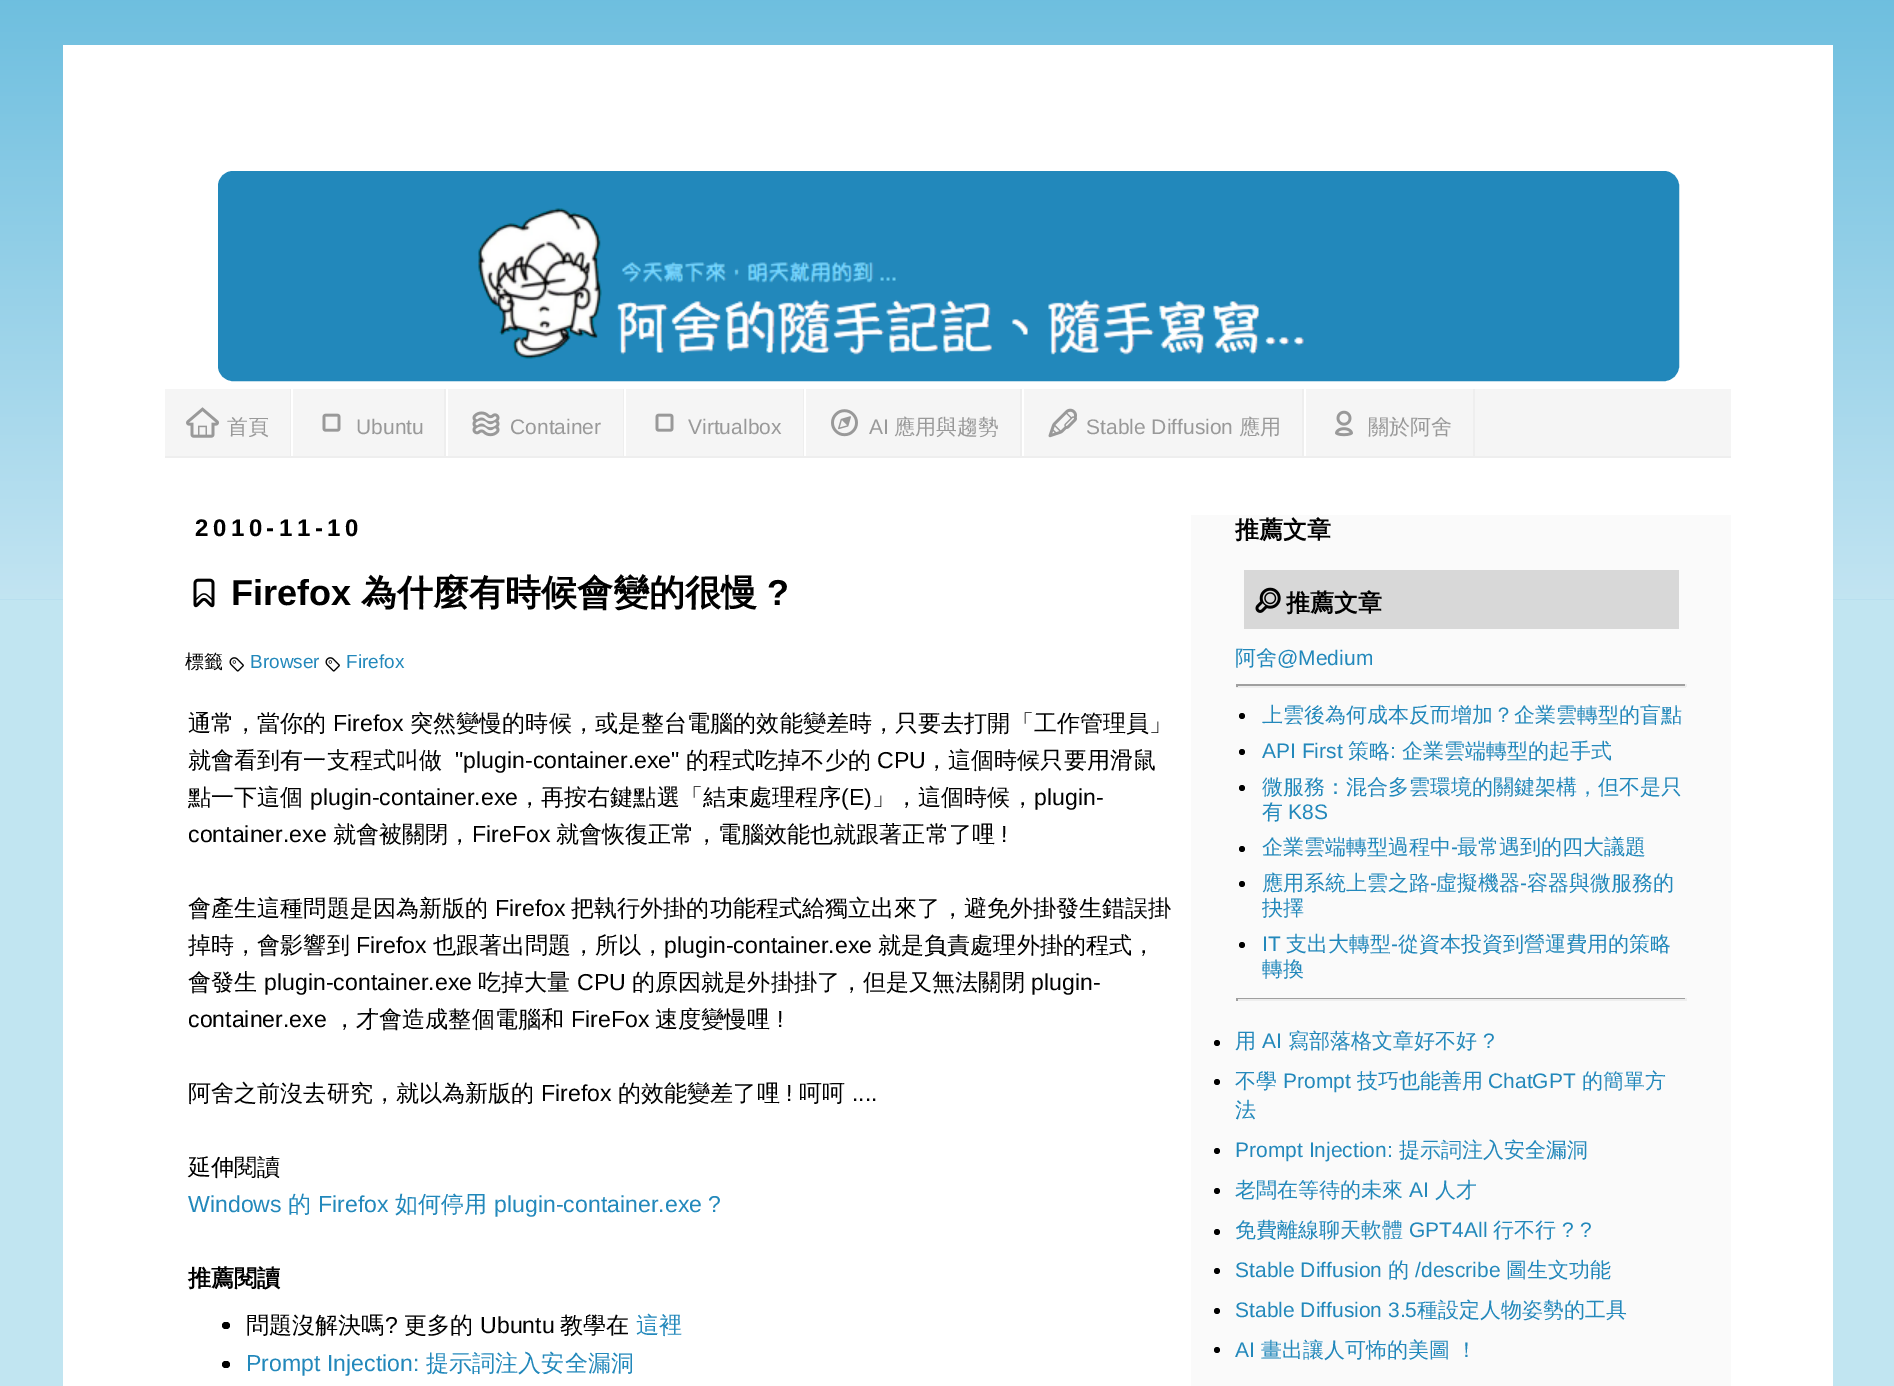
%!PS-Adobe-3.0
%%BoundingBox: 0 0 1894 1386
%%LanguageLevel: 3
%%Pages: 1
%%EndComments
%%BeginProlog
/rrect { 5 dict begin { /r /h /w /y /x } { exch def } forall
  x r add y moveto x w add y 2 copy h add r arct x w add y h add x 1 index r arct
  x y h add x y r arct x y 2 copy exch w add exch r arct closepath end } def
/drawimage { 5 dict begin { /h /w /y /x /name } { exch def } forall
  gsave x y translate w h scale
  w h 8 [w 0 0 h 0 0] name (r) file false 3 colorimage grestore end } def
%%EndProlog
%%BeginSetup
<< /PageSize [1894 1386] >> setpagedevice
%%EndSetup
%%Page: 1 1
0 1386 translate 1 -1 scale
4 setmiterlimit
0.757 0.898 0.945 setrgbcolor
0 0 1894 1386 rectfill
0.4 0.733 0.867 setrgbcolor
0 0 1894 600 rectfill
(images/1.raw) 0 0 1894 600 drawimage
1 setgray
63 45 1770 1341 rectfill
0.133 0.533 0.733 setrgbcolor
219.5 172.5 1458 207 13.5 rrect gsave fill grestore
3 setlinewidth
stroke
(images/2.raw) 478 208 826 151 drawimage
0.961 setgray
165 389 1566 67 rectfill
0.933 setgray
165 456 1566 2 rectfill
290 389 1 67 rectfill
(images/3.raw) 186 407 33 31 drawimage
444 389 2 67 rectfill
1 setgray
291 389 2 67 rectfill
(images/4.raw) 322 413 19 19 drawimage
0.933 setgray
623 389 1 67 rectfill
1 setgray
446 389 2 67 rectfill
(images/5.raw) 472 411 28 26 drawimage
0.933 setgray
803 389 1 67 rectfill
1 setgray
624 389 2 67 rectfill
(images/4.raw) 655 413 19 19 drawimage
0.933 setgray
1020 389 2 67 rectfill
1 setgray
804 389 2 67 rectfill
(images/6.raw) 831 409 27 28 drawimage
0.933 setgray
1302 389 2 67 rectfill
1 setgray
1022 389 2 67 rectfill
(images/7.raw) 1048 408 29 30 drawimage
0.933 setgray
1473 389 2 67 rectfill
1 setgray
1304 389 2 67 rectfill
(images/8.raw) 1335 410 18 27 drawimage
(images/9.raw) 193 578 22 30 drawimage
(images/10.raw) 229 657 15 15 drawimage
(images/10.raw) 325 657 15 15 drawimage
0 setgray
222 1322 8 7 3.5 rrect fill
222 1361 8 7 3.5 rrect fill
0.98 setgray
1191 515 540 871 rectfill
0.847 setgray
1244 570 435 59 rectfill
(images/11.raw) 1255 587 26 26 drawimage
0.624 setgray
1236 684 450 2 rectfill
0.933 setgray
1685 684 2 3 rectfill
1236 686 450 2 rectfill
0.624 setgray
1236 684 2 3 rectfill
0 setgray
newpath 1242 716 3 0 360 arc closepath fill
newpath 1242 752 3 0 360 arc closepath fill
newpath 1242 788 3 0 360 arc closepath fill
newpath 1242 849 3 0 360 arc closepath fill
newpath 1242 884 3 0 360 arc closepath fill
newpath 1242 945 3 0 360 arc closepath fill
0.624 setgray
1236 998 450 1 rectfill
0.933 setgray
1685 998 2 3 rectfill
1236 999 450 2 rectfill
0.624 setgray
1236 998 2 3 rectfill
0 setgray
newpath 1217 1043 3 0 360 arc closepath fill
newpath 1217 1082 3 0 360 arc closepath fill
newpath 1217 1151 3 0 360 arc closepath fill
newpath 1217 1191 3 0 360 arc closepath fill
newpath 1217 1232 3 0 360 arc closepath fill
newpath 1217 1271 3 0 360 arc closepath fill
newpath 1217 1311 3 0 360 arc closepath fill
newpath 1217 1350 3 0 360 arc closepath fill
/WenQuanYiZenHei-Medium [21 0 0 -21 0 0] selectfont
0.6 setgray
227 434 moveto (首頁) show
/LiberationSans-Regular [21 0 0 -21 0 0] selectfont
356 434 moveto (Ubuntu) show
510 434 moveto (Container) show
688 434 moveto (Virtualbox) show
869 434 moveto (AI) show
/WenQuanYiZenHei-Medium [21 0 0 -21 0 0] selectfont
894 434 moveto (應用與趨勢) show
/LiberationSans-Regular [21 0 0 -21 0 0] selectfont
1086 434 moveto (Stable Diffusion) show
/WenQuanYiZenHei-Medium [21 0 0 -21 0 0] selectfont
1239 434 moveto (應用) show
1368 434 moveto (關於阿舍) show
/LiberationSans-Bold [24 0 0 -24 0 0] selectfont
0 setgray
195 536 moveto 4.5 0 (2010-11-10) ashow
/LiberationSans-Bold [36 0 0 -36 0 0] selectfont
231 605 moveto (Firefox) show
/WenQuanYiZenHei-Bold [36 0 0 -36 0 0] selectfont
361 605 moveto (為什麼有時候會變的很慢) show
/LiberationSans-Bold [36 0 0 -36 0 0] selectfont
767 605 moveto (?) show
/WenQuanYiZenHei-Medium [19 0 0 -19 0 0] selectfont
185 668 moveto (標籤) show
/LiberationSans-Regular [19 0 0 -19 0 0] selectfont
0.133 0.533 0.733 setrgbcolor
250 668 moveto (Browser) show
346 668 moveto (Firefox) show
/WenQuanYiZenHei-Medium [23.1 0 0 -23.1 0 0] selectfont
0 setgray
188 731 moveto (通常，當你的) show
/LiberationSans-Regular [23.1 0 0 -23.1 0 0] selectfont
333 731 moveto (Firefox) show
/WenQuanYiZenHei-Medium [23.1 0 0 -23.1 0 0] selectfont
410 731 moveto (突然變慢的時候，或是整台電腦的效能變差時，只要去打開「工作管理員」) show
188 768 moveto (就會看到有一支程式叫做) show
/LiberationSans-Regular [23.1 0 0 -23.1 0 0] selectfont
455 768 moveto ("plugin-container.exe") show
/WenQuanYiZenHei-Medium [23.1 0 0 -23.1 0 0] selectfont
686 768 moveto (的程式吃掉不少的) show
/LiberationSans-Regular [23.1 0 0 -23.1 0 0] selectfont
877 768 moveto (CPU) show
/WenQuanYiZenHei-Medium [23.1 0 0 -23.1 0 0] selectfont
925 768 moveto (，這個時候只要用滑鼠) show
188 805 moveto (點一下這個) show
/LiberationSans-Regular [23.1 0 0 -23.1 0 0] selectfont
310 805 moveto (plugin-container.exe) show
/WenQuanYiZenHei-Medium [23.1 0 0 -23.1 0 0] selectfont
518 805 moveto (，再按右鍵點選「結束處理程序) show
/LiberationSans-Regular [23.1 0 0 -23.1 0 0] selectfont
841 805 moveto (\(E\)) show
/WenQuanYiZenHei-Medium [23.1 0 0 -23.1 0 0] selectfont
872 805 moveto (」，這個時候，) show
/LiberationSans-Regular [23.1 0 0 -23.1 0 0] selectfont
1034 805 moveto (plugin-) show
188 842 moveto (container.exe) show
/WenQuanYiZenHei-Medium [23.1 0 0 -23.1 0 0] selectfont
333 842 moveto (就會被關閉，) show
/LiberationSans-Regular [23.1 0 0 -23.1 0 0] selectfont
472 842 moveto (FireFox) show
/WenQuanYiZenHei-Medium [23.1 0 0 -23.1 0 0] selectfont
556 842 moveto (就會恢復正常，電腦效能也就跟著正常了哩) show
/LiberationSans-Regular [23.1 0 0 -23.1 0 0] selectfont
1001 842 moveto (!) show
/WenQuanYiZenHei-Medium [23.1 0 0 -23.1 0 0] selectfont
188 916 moveto (會產生這種問題是因為新版的) show
/LiberationSans-Regular [23.1 0 0 -23.1 0 0] selectfont
495 916 moveto (Firefox) show
/WenQuanYiZenHei-Medium [23.1 0 0 -23.1 0 0] selectfont
571 916 moveto (把執行外掛的功能程式給獨立出來了，避免外掛發生錯誤掛) show
188 953 moveto (掉時，會影響到) show
/LiberationSans-Regular [23.1 0 0 -23.1 0 0] selectfont
356 953 moveto (Firefox) show
/WenQuanYiZenHei-Medium [23.1 0 0 -23.1 0 0] selectfont
433 953 moveto (也跟著出問題，所以，) show
/LiberationSans-Regular [23.1 0 0 -23.1 0 0] selectfont
664 953 moveto (plugin-container.exe) show
/WenQuanYiZenHei-Medium [23.1 0 0 -23.1 0 0] selectfont
878 953 moveto (就是負責處理外掛的程式，) show
188 990 moveto (會發生) show
/LiberationSans-Regular [23.1 0 0 -23.1 0 0] selectfont
264 990 moveto (plugin-container.exe) show
/WenQuanYiZenHei-Medium [23.1 0 0 -23.1 0 0] selectfont
478 990 moveto (吃掉大量) show
/LiberationSans-Regular [23.1 0 0 -23.1 0 0] selectfont
577 990 moveto (CPU) show
/WenQuanYiZenHei-Medium [23.1 0 0 -23.1 0 0] selectfont
632 990 moveto (的原因就是外掛掛了，但是又無法關閉) show
/LiberationSans-Regular [23.1 0 0 -23.1 0 0] selectfont
1031 990 moveto (plugin-) show
188 1027 moveto (container.exe) show
/WenQuanYiZenHei-Medium [23.1 0 0 -23.1 0 0] selectfont
333 1027 moveto (，才會造成整個電腦和) show
/LiberationSans-Regular [23.1 0 0 -23.1 0 0] selectfont
571 1027 moveto (FireFox) show
/WenQuanYiZenHei-Medium [23.1 0 0 -23.1 0 0] selectfont
655 1027 moveto (速度變慢哩) show
/LiberationSans-Regular [23.1 0 0 -23.1 0 0] selectfont
777 1027 moveto (!) show
/WenQuanYiZenHei-Medium [23.1 0 0 -23.1 0 0] selectfont
188 1101 moveto (阿舍之前沒去研究，就以為新版的) show
/LiberationSans-Regular [23.1 0 0 -23.1 0 0] selectfont
541 1101 moveto (Firefox) show
/WenQuanYiZenHei-Medium [23.1 0 0 -23.1 0 0] selectfont
618 1101 moveto (的效能變差了哩) show
/LiberationSans-Regular [23.1 0 0 -23.1 0 0] selectfont
786 1101 moveto (!) show
/WenQuanYiZenHei-Medium [23.1 0 0 -23.1 0 0] selectfont
799 1101 moveto (呵呵) show
/LiberationSans-Regular [23.1 0 0 -23.1 0 0] selectfont
852 1101 moveto (....) show
/WenQuanYiZenHei-Medium [23.1 0 0 -23.1 0 0] selectfont
188 1175 moveto (延伸閱讀) show
/LiberationSans-Regular [23.1 0 0 -23.1 0 0] selectfont
0.133 0.533 0.733 setrgbcolor
188 1212 moveto (Windows) show
/WenQuanYiZenHei-Medium [23.1 0 0 -23.1 0 0] selectfont
288 1212 moveto (的) show
/LiberationSans-Regular [23.1 0 0 -23.1 0 0] selectfont
318 1212 moveto (Firefox) show
/WenQuanYiZenHei-Medium [23.1 0 0 -23.1 0 0] selectfont
395 1212 moveto (如何停用) show
/LiberationSans-Regular [23.1 0 0 -23.1 0 0] selectfont
494 1212 moveto (plugin-container.exe ?) show
/WenQuanYiZenHei-Bold [23.1 0 0 -23.1 0 0] selectfont
0 setgray
188 1286 moveto (推薦閱讀) show
/WenQuanYiZenHei-Medium [23.1 0 0 -23.1 0 0] selectfont
246 1333 moveto (問題沒解決嗎) show
/LiberationSans-Regular [23.1 0 0 -23.1 0 0] selectfont
385 1333 moveto (?) show
/WenQuanYiZenHei-Medium [23.1 0 0 -23.1 0 0] selectfont
404 1333 moveto (更多的) show
/LiberationSans-Regular [23.1 0 0 -23.1 0 0] selectfont
480 1333 moveto (Ubuntu) show
/WenQuanYiZenHei-Medium [23.1 0 0 -23.1 0 0] selectfont
560 1333 moveto (教學在) show
0.133 0.533 0.733 setrgbcolor
636 1333 moveto (這裡) show
/LiberationSans-Regular [23.1 0 0 -23.1 0 0] selectfont
246 1371 moveto (Prompt Injection:) show
/WenQuanYiZenHei-Medium [23.1 0 0 -23.1 0 0] selectfont
426 1371 moveto (提示詞注入安全漏洞) show
/WenQuanYiZenHei-Bold [24 0 0 -24 0 0] selectfont
0 setgray
1235 538 moveto (推薦文章) show
1286 611 moveto (推薦文章) show
/WenQuanYiZenHei-Medium [21 0 0 -21 0 0] selectfont
0.133 0.533 0.733 setrgbcolor
1235 665 moveto (阿舍) show
/LiberationSans-Regular [21 0 0 -21 0 0] selectfont
1277 665 moveto (@Medium) show
/WenQuanYiZenHei-Medium [21 0 0 -21 0 0] selectfont
1262 722 moveto (上雲後為何成本反而增加？企業雲轉型的盲點) show
/LiberationSans-Regular [21 0 0 -21 0 0] selectfont
1262 758 moveto (API First) show
/WenQuanYiZenHei-Medium [21 0 0 -21 0 0] selectfont
1348 758 moveto (策略) show
/LiberationSans-Regular [21 0 0 -21 0 0] selectfont
1390 758 moveto (:) show
/WenQuanYiZenHei-Medium [21 0 0 -21 0 0] selectfont
1402 758 moveto (企業雲端轉型的起手式) show
1262 794 moveto (微服務：混合多雲環境的關鍵架構，但不是只) show
1262 819 moveto (有) show
/LiberationSans-Regular [21 0 0 -21 0 0] selectfont
1288 819 moveto (K8S) show
/WenQuanYiZenHei-Medium [21 0 0 -21 0 0] selectfont
1262 854 moveto (企業雲端轉型過程中) show
/LiberationSans-Regular [21 0 0 -21 0 0] selectfont
1451 854 moveto (-) show
/WenQuanYiZenHei-Medium [21 0 0 -21 0 0] selectfont
1457 854 moveto (最常遇到的四大議題) show
1262 890 moveto (應用系統上雲之路) show
/LiberationSans-Regular [21 0 0 -21 0 0] selectfont
1430 890 moveto (-) show
/WenQuanYiZenHei-Medium [21 0 0 -21 0 0] selectfont
1436 890 moveto (虛擬機器) show
/LiberationSans-Regular [21 0 0 -21 0 0] selectfont
1520 890 moveto (-) show
/WenQuanYiZenHei-Medium [21 0 0 -21 0 0] selectfont
1527 890 moveto (容器與微服務的) show
1262 915 moveto (抉擇) show
/LiberationSans-Regular [21 0 0 -21 0 0] selectfont
1262 951 moveto (IT) show
/WenQuanYiZenHei-Medium [21 0 0 -21 0 0] selectfont
1286 951 moveto (支出大轉型) show
/LiberationSans-Regular [21 0 0 -21 0 0] selectfont
1391 951 moveto (-) show
/WenQuanYiZenHei-Medium [21 0 0 -21 0 0] selectfont
1398 951 moveto (從資本投資到營運費用的策略) show
1262 976 moveto (轉換) show
1235 1048 moveto (用) show
/LiberationSans-Regular [21 0 0 -21 0 0] selectfont
1262 1048 moveto (AI) show
/WenQuanYiZenHei-Medium [21 0 0 -21 0 0] selectfont
1288 1048 moveto (寫部落格文章好不好) show
/LiberationSans-Regular [21 0 0 -21 0 0] selectfont
1483 1048 moveto (?) show
/WenQuanYiZenHei-Medium [21 0 0 -21 0 0] selectfont
1235 1088 moveto (不學) show
/LiberationSans-Regular [21 0 0 -21 0 0] selectfont
1283 1088 moveto (Prompt) show
/WenQuanYiZenHei-Medium [21 0 0 -21 0 0] selectfont
1357 1088 moveto (技巧也能善用) show
/LiberationSans-Regular [21 0 0 -21 0 0] selectfont
1488 1088 moveto (ChatGPT) show
/WenQuanYiZenHei-Medium [21 0 0 -21 0 0] selectfont
1582 1088 moveto (的簡單方) show
1235 1117 moveto (法) show
/LiberationSans-Regular [21 0 0 -21 0 0] selectfont
1235 1157 moveto (Prompt Injection:) show
/WenQuanYiZenHei-Medium [21 0 0 -21 0 0] selectfont
1399 1157 moveto (提示詞注入安全漏洞) show
1235 1197 moveto (老闆在等待的未來) show
/LiberationSans-Regular [21 0 0 -21 0 0] selectfont
1409 1197 moveto (AI) show
/WenQuanYiZenHei-Medium [21 0 0 -21 0 0] selectfont
1435 1197 moveto (人才) show
1235 1237 moveto (免費離線聊天軟體) show
/LiberationSans-Regular [21 0 0 -21 0 0] selectfont
1409 1237 moveto (GPT4All) show
/WenQuanYiZenHei-Medium [21 0 0 -21 0 0] selectfont
1493 1237 moveto (行不行) show
/LiberationSans-Regular [21 0 0 -21 0 0] selectfont
1562 1237 moveto (? ?) show
1235 1277 moveto (Stable Diffusion) show
/WenQuanYiZenHei-Medium [21 0 0 -21 0 0] selectfont
1388 1277 moveto (的) show
/LiberationSans-Regular [21 0 0 -21 0 0] selectfont
1415 1277 moveto (/describe) show
/WenQuanYiZenHei-Medium [21 0 0 -21 0 0] selectfont
1506 1277 moveto (圖生文功能) show
/LiberationSans-Regular [21 0 0 -21 0 0] selectfont
1235 1317 moveto (Stable Diffusion 3.5) show
/WenQuanYiZenHei-Medium [21 0 0 -21 0 0] selectfont
1417 1317 moveto (種設定人物姿勢的工具) show
/LiberationSans-Regular [21 0 0 -21 0 0] selectfont
1235 1357 moveto (AI) show
/WenQuanYiZenHei-Medium [21 0 0 -21 0 0] selectfont
1261 1357 moveto (畫出讓人可怖的美圖 ！) show
showpage
%%EOF
